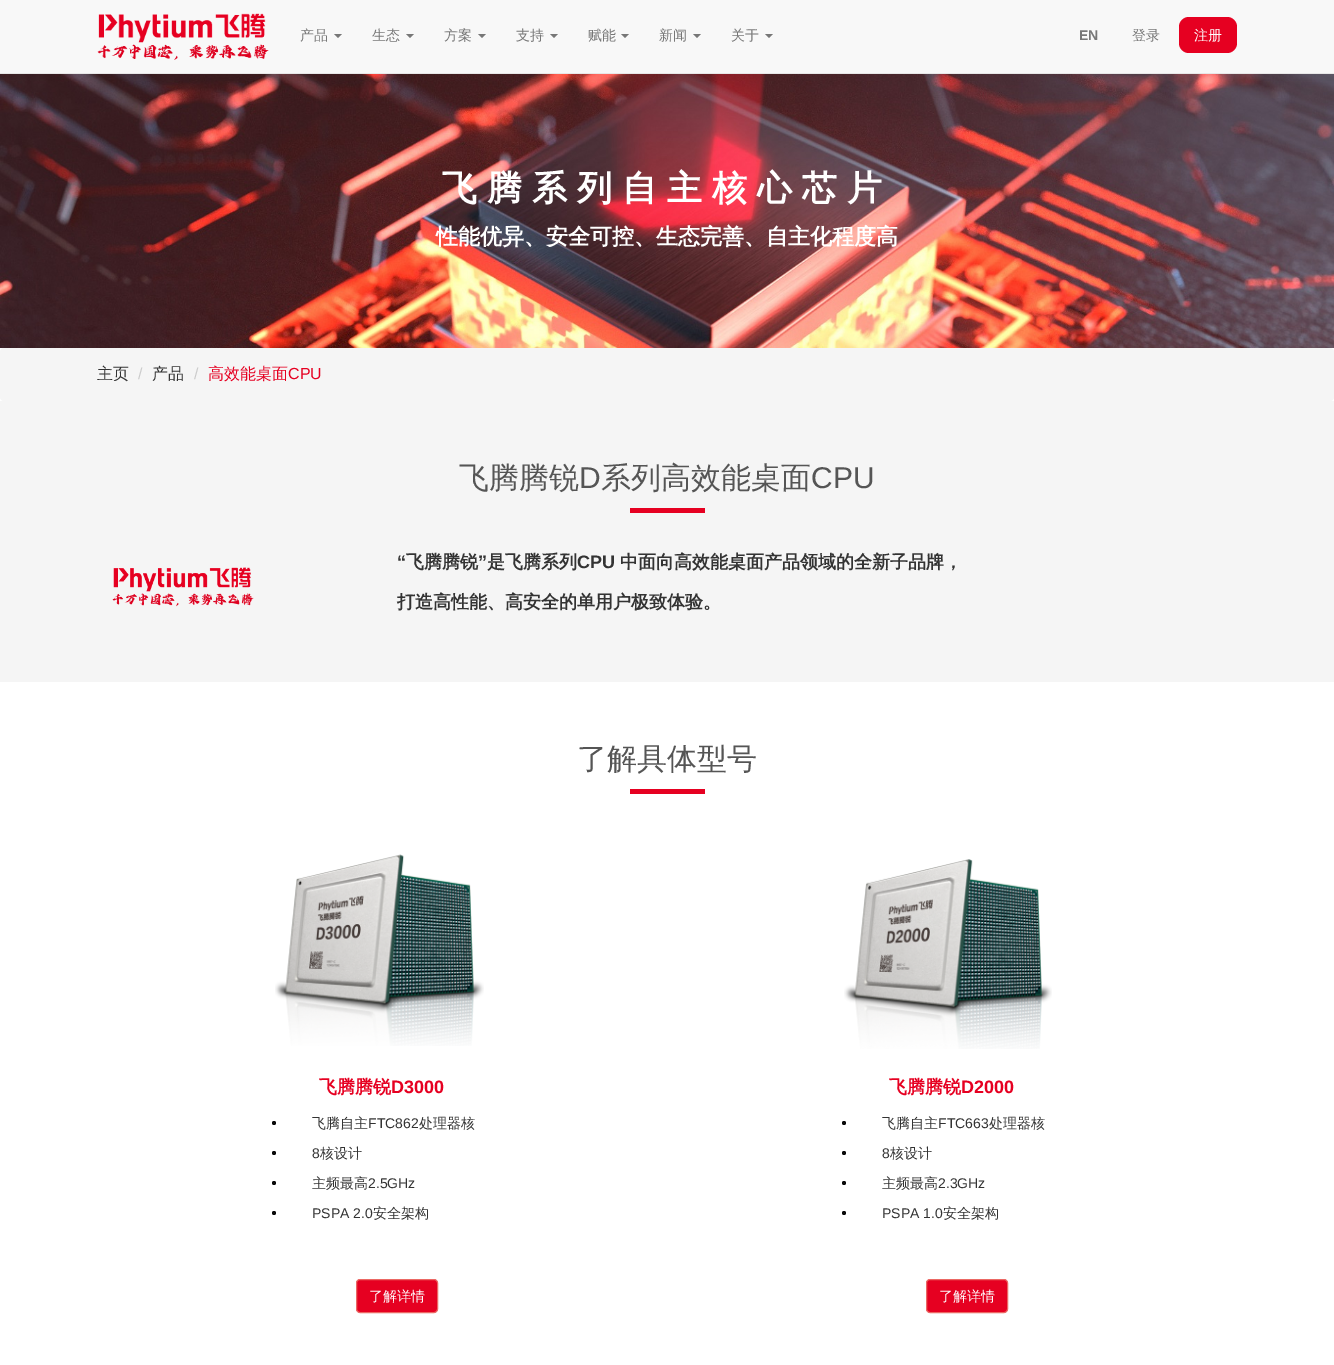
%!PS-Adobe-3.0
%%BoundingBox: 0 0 1334 1365
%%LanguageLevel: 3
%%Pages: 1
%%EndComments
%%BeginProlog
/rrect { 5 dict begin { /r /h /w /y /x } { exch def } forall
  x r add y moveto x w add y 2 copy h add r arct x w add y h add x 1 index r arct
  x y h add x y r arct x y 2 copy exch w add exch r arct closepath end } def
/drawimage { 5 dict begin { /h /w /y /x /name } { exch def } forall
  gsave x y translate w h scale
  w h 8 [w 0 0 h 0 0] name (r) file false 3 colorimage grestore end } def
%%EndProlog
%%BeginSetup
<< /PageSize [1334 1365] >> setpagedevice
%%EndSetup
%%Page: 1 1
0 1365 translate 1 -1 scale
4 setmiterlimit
1 setgray
0 0 1334 1365 rectfill
0.973 setgray
0 0 1334 73 rectfill
0.906 setgray
0 73 1334 1 rectfill
(images/1.raw) 97 13 172 47 drawimage
0.467 setgray
newpath 334 34 moveto 342 34 lineto 338 38 lineto closepath fill
newpath 406 34 moveto 414 34 lineto 410 38 lineto closepath fill
newpath 478 34 moveto 486 34 lineto 482 38 lineto closepath fill
newpath 550 34 moveto 558 34 lineto 554 38 lineto closepath fill
newpath 621 34 moveto 629 34 lineto 625 38 lineto closepath fill
newpath 693 34 moveto 701 34 lineto 697 38 lineto closepath fill
newpath 765 34 moveto 773 34 lineto 769 38 lineto closepath fill
0.902 0 0.129 setrgbcolor
1179 17 58 36 10 rrect fill
(images/2.raw) 0 74 1334 274 drawimage
0.961 setgray
0 348 1334 53 4 rrect fill
0 401 1334 281 rectfill
0.902 0 0.129 setrgbcolor
630 508 75 5 rectfill
(images/3.raw) 112 567 142 40 drawimage
630 789 75 5 rectfill
(images/4.raw) 275 854 209 192 drawimage
0.039 setgray
newpath 274 1123 2 0 360 arc closepath fill
newpath 274 1153 2 0 360 arc closepath fill
newpath 274 1183 2 0 360 arc closepath fill
newpath 274 1213 2 0 360 arc closepath fill
0.902 0 0.129 setrgbcolor
356.5 1279.5 81 33 3.5 rrect gsave fill grestore
0.922 0.408 0.392 setrgbcolor
stroke
(images/5.raw) 844 859 208 190 drawimage
0.039 setgray
newpath 844 1123 2 0 360 arc closepath fill
newpath 844 1153 2 0 360 arc closepath fill
newpath 844 1183 2 0 360 arc closepath fill
newpath 844 1213 2 0 360 arc closepath fill
0.902 0 0.129 setrgbcolor
926.5 1279.5 81 33 3.5 rrect gsave fill grestore
0.922 0.408 0.392 setrgbcolor
stroke
/WenQuanYiZenHei-Medium [14 0 0 -14 0 0] selectfont
0.467 setgray
300 40 moveto (产品) show
372 40 moveto (生态) show
444 40 moveto (方案) show
516 40 moveto (支持) show
588 40 moveto (赋能) show
659 40 moveto (新闻) show
731 40 moveto (关于) show
/LiberationSans-Bold [14 0 0 -14 0 0] selectfont
1079 40 moveto (EN) show
/WenQuanYiZenHei-Medium [14 0 0 -14 0 0] selectfont
1132 40 moveto (登录) show
1 setgray
1194 40 moveto (注册) show
/WenQuanYiZenHei-Bold [35 0 0 -35 0 0] selectfont
442 200 moveto 10 0 (飞腾系列自主核心芯片) ashow
/WenQuanYiZenHei-Bold [22 0 0 -22 0 0] selectfont
436 244 moveto (性能优异、安全可控、生态完善、自主化程度高) show
/WenQuanYiZenHei-Medium [16 0 0 -16 0 0] selectfont
0.2 setgray
97 379 moveto (主页) show
/LiberationSans-Regular [16 0 0 -16 0 0] selectfont
0.8 setgray
138 379 moveto (/) show
/WenQuanYiZenHei-Medium [16 0 0 -16 0 0] selectfont
0.2 setgray
152 379 moveto (产品) show
/LiberationSans-Regular [16 0 0 -16 0 0] selectfont
0.8 setgray
194 379 moveto (/) show
/WenQuanYiZenHei-Medium [16 0 0 -16 0 0] selectfont
0.902 0 0.129 setrgbcolor
208 379 moveto (高效能桌面) show
/LiberationSans-Regular [16 0 0 -16 0 0] selectfont
288 379 moveto (CPU) show
/WenQuanYiZenHei-Medium [30 0 0 -30 0 0] selectfont
0.333 setgray
459 488 moveto (飞腾腾锐) show
/LiberationSans-Regular [30 0 0 -30 0 0] selectfont
579 488 moveto (D) show
/WenQuanYiZenHei-Medium [30 0 0 -30 0 0] selectfont
601 488 moveto (系列高效能桌面) show
/LiberationSans-Regular [30 0 0 -30 0 0] selectfont
811 488 moveto (CPU) show
/LiberationSans-Bold [18 0 0 -18 0 0] selectfont
0.2 setgray
397 568 moveto (“) show
/WenQuanYiZenHei-Bold [18 0 0 -18 0 0] selectfont
406 568 moveto (飞腾腾锐) show
/LiberationSans-Bold [18 0 0 -18 0 0] selectfont
478 568 moveto (”) show
/WenQuanYiZenHei-Bold [18 0 0 -18 0 0] selectfont
487 568 moveto (是飞腾系列) show
/LiberationSans-Bold [18 0 0 -18 0 0] selectfont
577 568 moveto (CPU) show
/WenQuanYiZenHei-Bold [18 0 0 -18 0 0] selectfont
620 568 moveto (中面向高效能桌面产品领域的全新子品牌，) show
397 608 moveto (打造高性能、高安全的单用户极致体验。) show
/WenQuanYiZenHei-Medium [30 0 0 -30 0 0] selectfont
0.333 setgray
577 769 moveto (了解具体型号) show
/WenQuanYiZenHei-Bold [18 0 0 -18 0 0] selectfont
0.902 0 0.129 setrgbcolor
319 1093 moveto (飞腾腾锐) show
/LiberationSans-Bold [18 0 0 -18 0 0] selectfont
391 1093 moveto (D3000) show
/WenQuanYiZenHei-Medium [14 0 0 -14 0 0] selectfont
0.2 setgray
312 1128 moveto (飞腾自主) show
/LiberationSans-Regular [14 0 0 -14 0 0] selectfont
368 1128 moveto (FTC862) show
/WenQuanYiZenHei-Medium [14 0 0 -14 0 0] selectfont
419 1128 moveto (处理器核) show
/LiberationSans-Regular [14 0 0 -14 0 0] selectfont
312 1158 moveto (8) show
/WenQuanYiZenHei-Medium [14 0 0 -14 0 0] selectfont
320 1158 moveto (核设计) show
312 1188 moveto (主频最高) show
/LiberationSans-Regular [14 0 0 -14 0 0] selectfont
368 1188 moveto (2.5GHz) show
312 1218 moveto (PSPA 2.0) show
/WenQuanYiZenHei-Medium [14 0 0 -14 0 0] selectfont
373 1218 moveto (安全架构) show
1 setgray
369 1301 moveto (了解详情) show
/WenQuanYiZenHei-Bold [18 0 0 -18 0 0] selectfont
0.902 0 0.129 setrgbcolor
889 1093 moveto (飞腾腾锐) show
/LiberationSans-Bold [18 0 0 -18 0 0] selectfont
961 1093 moveto (D2000) show
/WenQuanYiZenHei-Medium [14 0 0 -14 0 0] selectfont
0.2 setgray
882 1128 moveto (飞腾自主) show
/LiberationSans-Regular [14 0 0 -14 0 0] selectfont
938 1128 moveto (FTC663) show
/WenQuanYiZenHei-Medium [14 0 0 -14 0 0] selectfont
989 1128 moveto (处理器核) show
/LiberationSans-Regular [14 0 0 -14 0 0] selectfont
882 1158 moveto (8) show
/WenQuanYiZenHei-Medium [14 0 0 -14 0 0] selectfont
890 1158 moveto (核设计) show
882 1188 moveto (主频最高) show
/LiberationSans-Regular [14 0 0 -14 0 0] selectfont
938 1188 moveto (2.3GHz) show
882 1218 moveto (PSPA 1.0) show
/WenQuanYiZenHei-Medium [14 0 0 -14 0 0] selectfont
943 1218 moveto (安全架构) show
1 setgray
939 1301 moveto (了解详情) show
showpage
%%EOF
